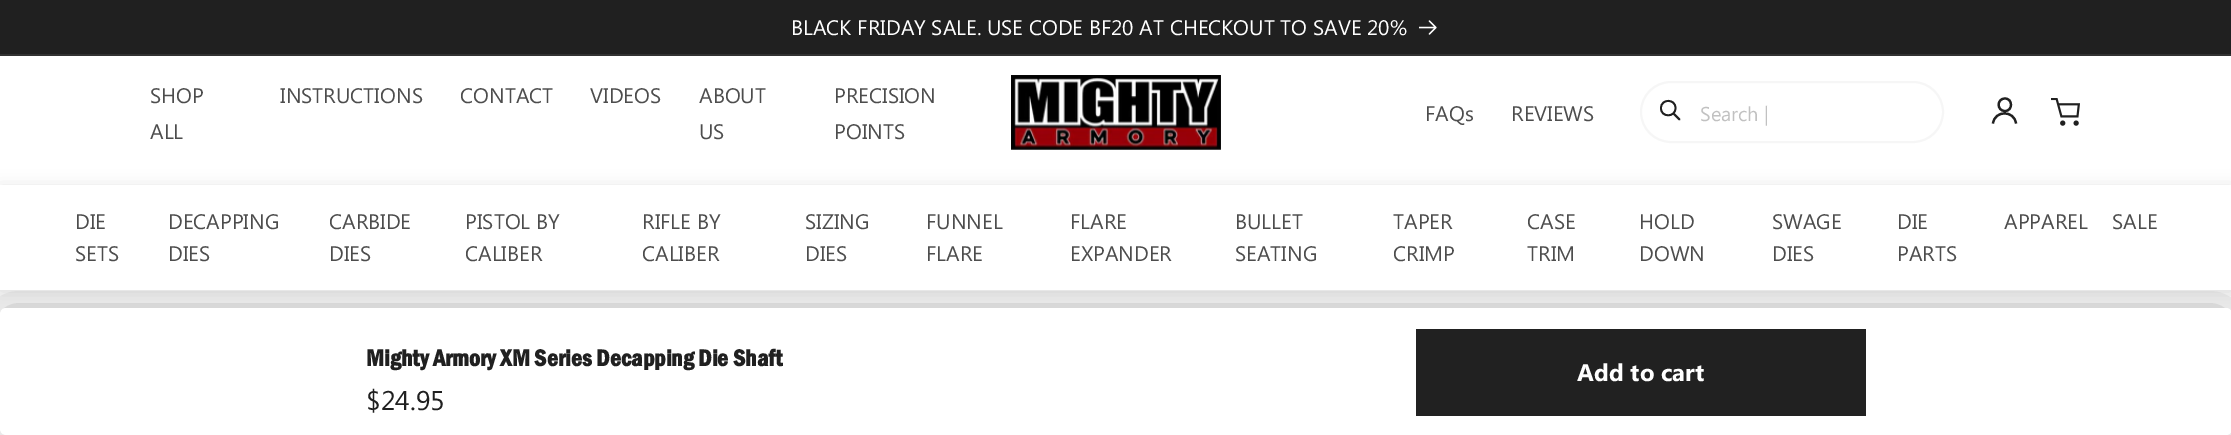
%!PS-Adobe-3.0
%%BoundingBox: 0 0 2231 435
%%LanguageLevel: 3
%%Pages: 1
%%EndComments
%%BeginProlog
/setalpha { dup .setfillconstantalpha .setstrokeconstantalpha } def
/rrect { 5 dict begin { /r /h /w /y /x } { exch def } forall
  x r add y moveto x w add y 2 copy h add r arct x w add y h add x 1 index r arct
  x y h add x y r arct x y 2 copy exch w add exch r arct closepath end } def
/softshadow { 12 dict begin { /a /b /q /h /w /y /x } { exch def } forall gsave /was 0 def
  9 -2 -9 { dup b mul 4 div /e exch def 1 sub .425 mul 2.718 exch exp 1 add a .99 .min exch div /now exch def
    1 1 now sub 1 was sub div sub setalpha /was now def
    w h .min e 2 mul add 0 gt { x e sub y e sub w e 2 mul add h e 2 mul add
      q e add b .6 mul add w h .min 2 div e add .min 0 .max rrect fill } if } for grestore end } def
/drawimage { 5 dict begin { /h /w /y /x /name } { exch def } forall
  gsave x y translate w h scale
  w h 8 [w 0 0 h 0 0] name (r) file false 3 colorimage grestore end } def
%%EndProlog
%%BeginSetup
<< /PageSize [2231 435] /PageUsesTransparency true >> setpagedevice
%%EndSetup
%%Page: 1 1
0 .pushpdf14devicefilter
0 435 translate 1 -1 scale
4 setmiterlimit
1 setgray
0 0 2231 435 rectfill
0.125 setgray
0 0 2231 54 rectfill
0.196 setgray
0 54 2231 2 rectfill
(images/1.raw) 1419 20 18 15 drawimage
(images/2.raw) 1011 75 210 75 drawimage
0.965 setgray
2 setlinewidth
1641 82 302 60 30 rrect stroke
0.125 setgray
1.8 setlinewidth
1 setlinecap
1 setlinejoin
newpath 1679.5 119.5 moveto 1673.5 113.5 lineto 1675.5 108 moveto 1675.5 118 1660.5 117.5 1661 108 curveto 1661 98.5 1675.5 98.5 1675.5 108 curveto closepath stroke
2.2 setlinewidth
0 setlinecap
0 setlinejoin
newpath 2005 111 moveto 2013 111 2013 98.5 2005 98.5 curveto 1996.5 98.5 1996.5 111 2005 111 curveto closepath 2016 123.5 moveto 2014.5 110 1994.5 110 1993 123.5 curveto stroke
(images/3.raw) 2051 98 29 28 drawimage
0 setgray
0 309 2229 125 5 24 0.3 softshadow
1 setgray
0 308 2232 127 6 rrect fill
0 setgray
0 186 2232 105 0 7.5 0.1 softshadow
1 setgray
0 185 2231 105 rectfill
0.129 setgray
1416 329 450 87 rectfill
/SegoeUI-Regular [21 0 0 -21 0 0] selectfont
1 setgray
791 35 moveto (BLACK FRIDAY SALE. USE CODE BF20 AT CHECKOUT TO SAVE 20%) show
0.302 setgray
150 103 moveto (SHOP) show
150 139 moveto (ALL) show
280 103 moveto (INSTRUCTIONS) show
460 103 moveto (CONTACT) show
590 103 moveto (VIDEOS) show
699 103 moveto (ABOUT) show
699 139 moveto (US) show
834 103 moveto (PRECISION) show
834 139 moveto (POINTS) show
1425 121 moveto (FAQs) show
1511 121 moveto (REVIEWS) show
/SegoeUI-Regular [20 0 0 -20 0 0] selectfont
0.757 setgray
1700 121 moveto (Search |) show
/SegoeUI-Regular [21 0 0 -21 0 0] selectfont
0.302 setgray
75 229 moveto (DIE) show
75 261 moveto (SETS) show
168 229 moveto (DECAPPING) show
168 261 moveto (DIES) show
329 229 moveto (CARBIDE) show
329 261 moveto (DIES) show
465 229 moveto (PISTOL BY) show
465 261 moveto (CALIBER) show
642 229 moveto (RIFLE BY) show
642 261 moveto (CALIBER) show
805 229 moveto (SIZING) show
805 261 moveto (DIES) show
926 229 moveto (FUNNEL) show
926 261 moveto (FLARE) show
1070 229 moveto (FLARE) show
1070 261 moveto (EXPANDER) show
1235 229 moveto (BULLET) show
1235 261 moveto (SEATING) show
1393 229 moveto (TAPER) show
1393 261 moveto (CRIMP) show
1527 229 moveto (CASE) show
1527 261 moveto (TRIM) show
1639 229 moveto (HOLD) show
1639 261 moveto (DOWN) show
1772 229 moveto (SWAGE) show
1772 261 moveto (DIES) show
1897 229 moveto (DIE) show
1897 261 moveto (PARTS) show
2004 229 moveto (APPAREL) show
2112 229 moveto (SALE) show
/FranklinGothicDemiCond-Bold [24 0 0 -24 0 0] selectfont
0.125 setgray
366 366 moveto (Mighty Armory XM Series Decapping Die Shaft) show
/SegoeUI-Regular [27 0 0 -27 0 0] selectfont
366 410 moveto ($24.95) show
/SegoeUI-Bold [24 0 0 -24 0 0] selectfont
1 setgray
1577 381 moveto (Add to cart) show
.poppdf14devicefilter showpage
%%EOF
